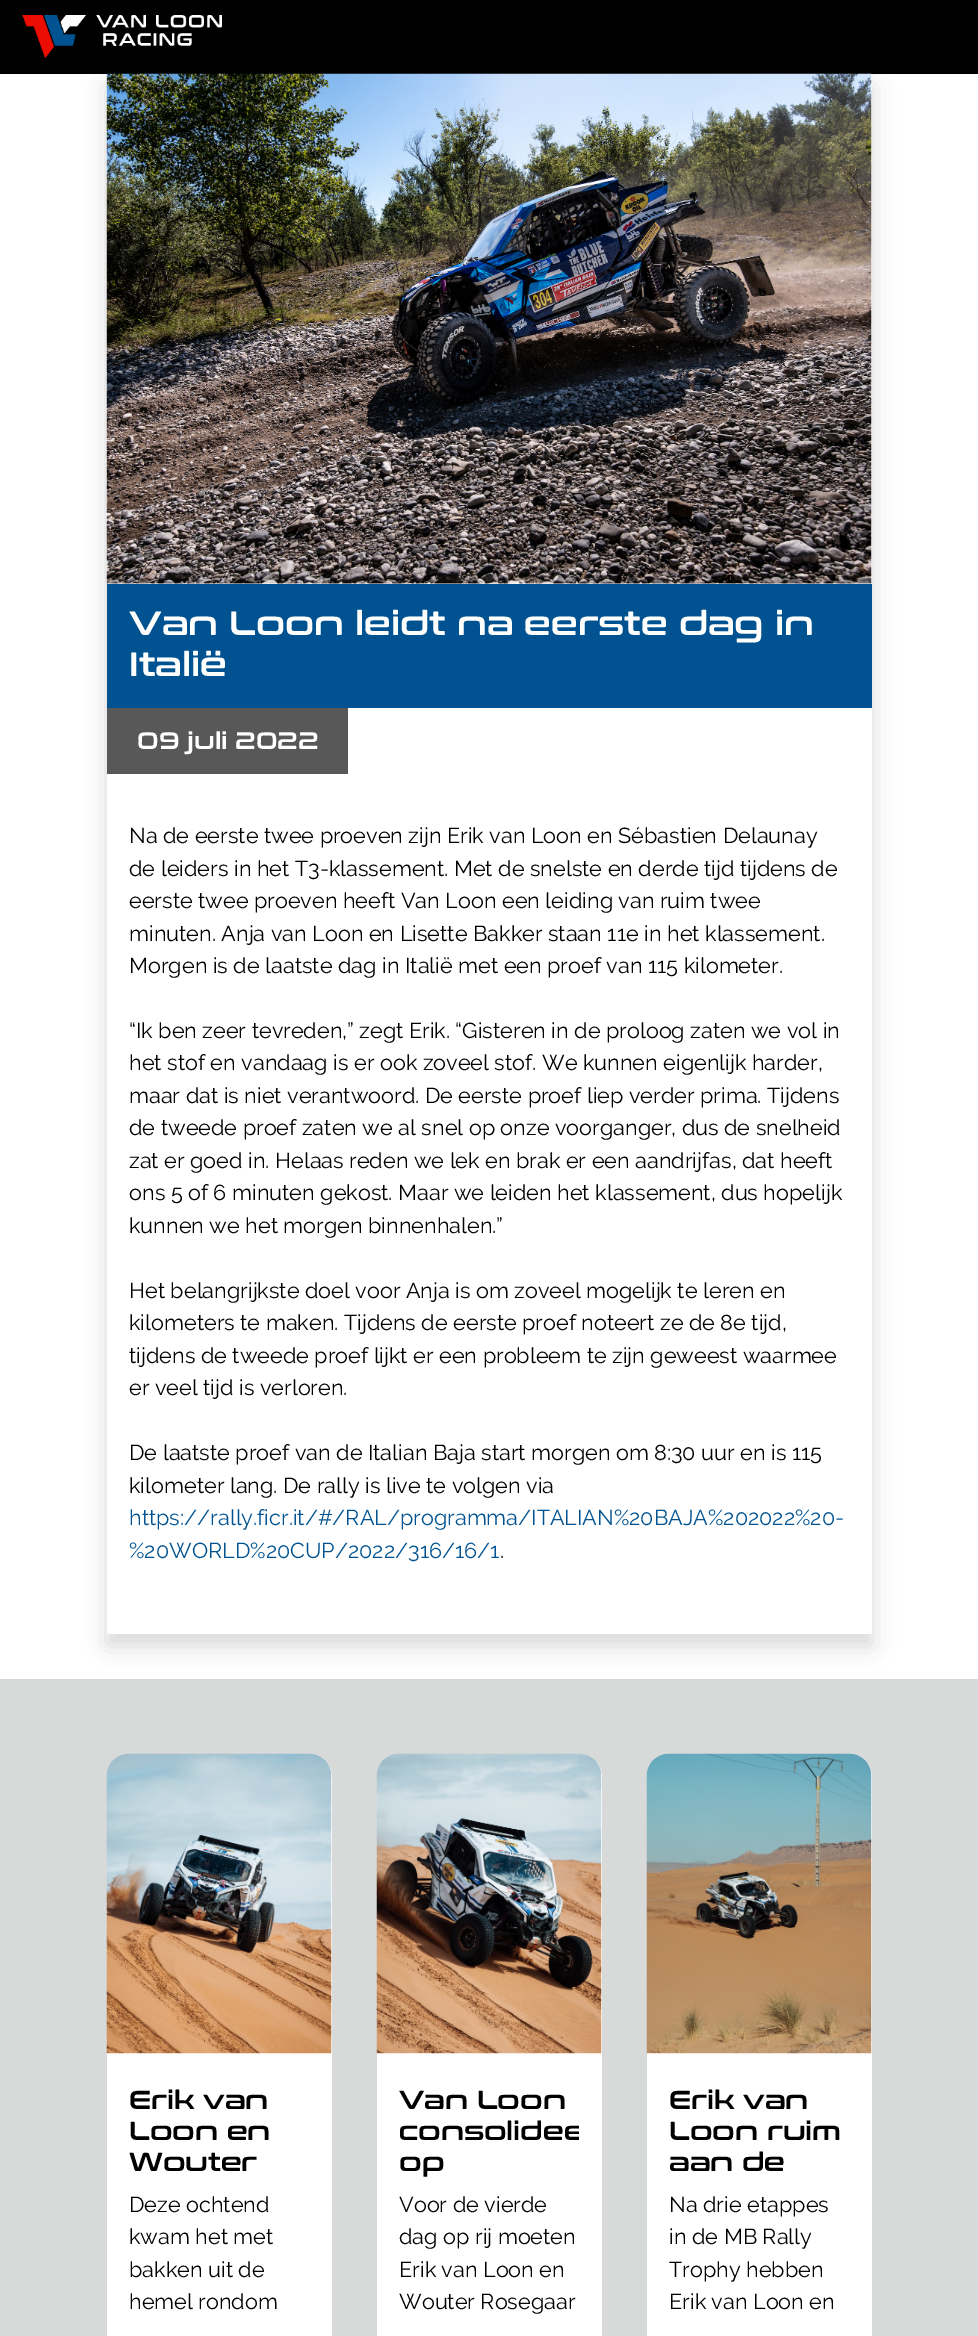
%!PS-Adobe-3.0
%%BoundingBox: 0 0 978 2336
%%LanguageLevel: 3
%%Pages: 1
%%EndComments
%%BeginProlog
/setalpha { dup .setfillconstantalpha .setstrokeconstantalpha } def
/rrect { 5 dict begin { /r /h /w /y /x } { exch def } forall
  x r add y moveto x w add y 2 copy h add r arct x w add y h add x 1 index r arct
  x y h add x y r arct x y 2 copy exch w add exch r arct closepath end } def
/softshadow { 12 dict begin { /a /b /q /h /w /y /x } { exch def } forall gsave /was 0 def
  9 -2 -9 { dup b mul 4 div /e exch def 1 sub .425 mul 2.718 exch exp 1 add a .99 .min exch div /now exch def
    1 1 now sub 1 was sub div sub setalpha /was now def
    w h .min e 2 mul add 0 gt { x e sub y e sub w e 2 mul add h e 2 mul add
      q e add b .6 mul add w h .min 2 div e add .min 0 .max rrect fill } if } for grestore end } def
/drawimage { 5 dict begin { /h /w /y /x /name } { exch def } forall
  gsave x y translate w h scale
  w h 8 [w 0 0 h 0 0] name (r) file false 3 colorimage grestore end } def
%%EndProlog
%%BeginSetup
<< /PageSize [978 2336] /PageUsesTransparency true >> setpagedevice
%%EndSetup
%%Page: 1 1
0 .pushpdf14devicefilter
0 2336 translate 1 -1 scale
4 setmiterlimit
1 setgray
0 0 978 2336 rectfill
0 setgray
0 0 978 74 rectfill
(images/1.raw) 22 15 200 44 drawimage
0.847 0.851 0.851 setrgbcolor
0 1679 978 657 rectfill
gsave
newpath 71 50 moveto 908 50 lineto 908 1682 lineto 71 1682 lineto closepath 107 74 moveto 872 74 lineto 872 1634 lineto 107 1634 lineto closepath eoclip newpath
0 setgray
107 86 765 1560 0 11.5 0.15 softshadow
grestore
(images/2.raw) 106 73 766 511 drawimage
0 0.325 0.565 setrgbcolor
107 584 765 124 rectfill
0.345 setgray
107 708 241 66 rectfill
1 setgray
107 1754 225 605 23 rrect fill
(images/3.raw) 106 1753 226 301 drawimage
377 1754 225 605 23 rrect fill
(images/4.raw) 376 1753 226 301 drawimage
647 1754 225 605 23 rrect fill
(images/5.raw) 646 1753 226 301 drawimage
/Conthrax-Regular [33.6 0 0 -33.6 0 0] selectfont
129 635 moveto (Van Loon leidt na eerste dag in) show
129 676 moveto (Italië) show
/Conthrax-Regular [23.75 0 0 -23.75 0 0] selectfont
137 749 moveto (09 juli 2022) show
/Raleway-Regular [21.65 0 0 -21.65 0 0] selectfont
0 setgray
129 843 moveto (Na de eerste twee proeven zijn Erik van Loon en Sébastien Delaunay) show
129 876 moveto (de leiders in het T3-klassement. Met de snelste en derde tijd tijdens de) show
129 908 moveto (eerste twee proeven heeft Van Loon een leiding van ruim twee) show
129 941 moveto (minuten. Anja van Loon en Lisette Bakker staan 11e in het klassement.) show
129 973 moveto (Morgen is de laatste dag in Italië met een proef van 115 kilometer.) show
129 1038 moveto (“Ik ben zeer tevreden,” zegt Erik. “Gisteren in de proloog zaten we vol in) show
129 1070 moveto (het stof en vandaag is er ook zoveel stof. We kunnen eigenlijk harder,) show
129 1103 moveto (maar dat is niet verantwoord. De eerste proef liep verder prima. Tijdens) show
129 1135 moveto (de tweede proef zaten we al snel op onze voorganger, dus de snelheid) show
129 1168 moveto (zat er goed in. Helaas reden we lek en brak er een aandrijfas, dat heeft) show
129 1200 moveto (ons 5 of 6 minuten gekost. Maar we leiden het klassement, dus hopelijk) show
129 1233 moveto (kunnen we het morgen binnenhalen.”) show
129 1298 moveto (Het belangrijkste doel voor Anja is om zoveel mogelijk te leren en) show
129 1330 moveto (kilometers te maken. Tijdens de eerste proef noteert ze de 8e tijd,) show
129 1363 moveto (tijdens de tweede proef lijkt er een probleem te zijn geweest waarmee) show
129 1395 moveto (er veel tijd is verloren.) show
129 1460 moveto (De laatste proef van de Italian Baja start morgen om 8:30 uur en is 115) show
129 1493 moveto (kilometer lang. De rally is live te volgen via) show
0 0.325 0.565 setrgbcolor
129 1525 moveto (https://rally.ficr.it/#/RAL/programma/ITALIAN%20BAJA%202022%20-) show
129 1558 moveto (%20WORLD%20CUP/2022/316/16/1) show
0 setgray
500 1558 moveto (.) show
/Conthrax-Regular [26 0 0 -26 0 0] selectfont
129 2109 moveto (Erik van) show
129 2140 moveto (Loon en) show
129 2171 moveto (Wouter) show
/Raleway-Regular [21.65 0 0 -21.65 0 0] selectfont
129 2212 moveto (Deze ochtend) show
129 2244 moveto (kwam het met) show
129 2277 moveto (bakken uit de) show
129 2309 moveto (hemel rondom) show
/Conthrax-Regular [26 0 0 -26 0 0] selectfont
399 2109 moveto (Van Loon) show
gsave
399 2087 180 90 rectclip
399 2140 moveto (consolidee) show
grestore
399 2171 moveto (op) show
/Raleway-Regular [21.65 0 0 -21.65 0 0] selectfont
399 2212 moveto (Voor de vierde) show
399 2244 moveto (dag op rij moeten) show
399 2277 moveto (Erik van Loon en) show
399 2309 moveto (Wouter Rosegaar) show
/Conthrax-Regular [26 0 0 -26 0 0] selectfont
669 2109 moveto (Erik van) show
669 2140 moveto (Loon ruim) show
669 2171 moveto (aan de) show
/Raleway-Regular [21.65 0 0 -21.65 0 0] selectfont
669 2212 moveto (Na drie etappes) show
669 2244 moveto (in de MB Rally) show
669 2277 moveto (Trophy hebben) show
669 2309 moveto (Erik van Loon en) show
.poppdf14devicefilter showpage
%%EOF
